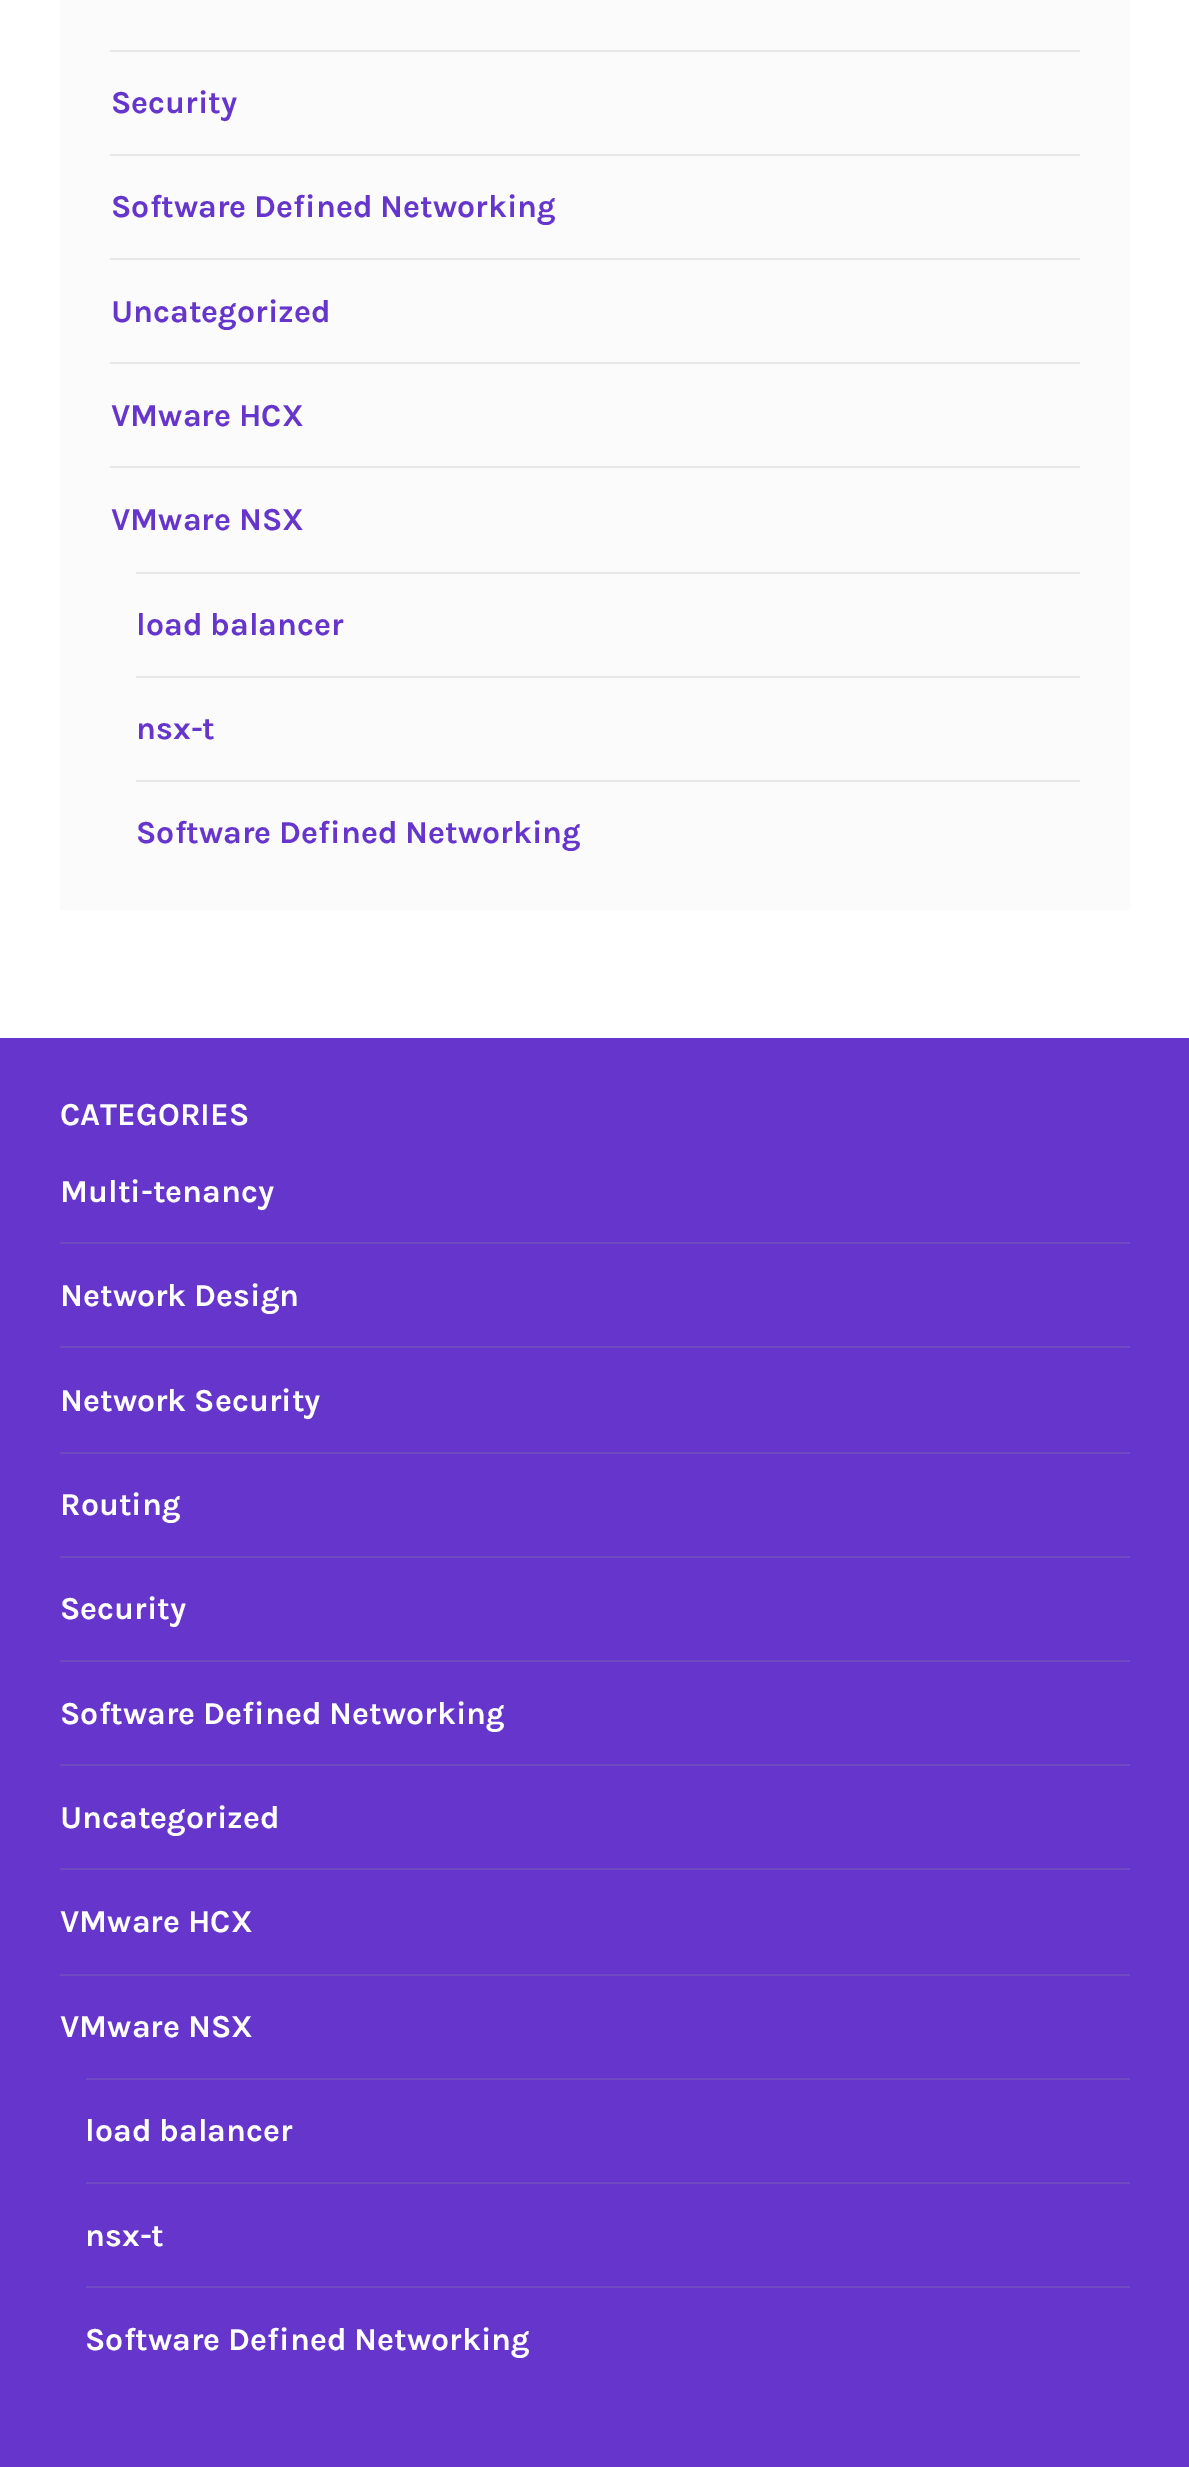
%!PS-Adobe-3.0
%%BoundingBox: 0 0 1189 2467
%%LanguageLevel: 3
%%Pages: 1
%%EndComments
%%BeginProlog
%%EndProlog
%%BeginSetup
<< /PageSize [1189 2467] >> setpagedevice
%%EndSetup
%%Page: 1 1
0 2467 translate 1 -1 scale
4 setmiterlimit
1 setgray
0 0 1189 2467 rectfill
0.984 setgray
60 0 1070 910 rectfill
0.906 setgray
110 50 970 2 rectfill
110 154 970 2 rectfill
110 258 970 2 rectfill
110 362 970 2 rectfill
110 466 970 2 rectfill
136 572 944 2 rectfill
136 676 944 2 rectfill
136 780 944 2 rectfill
0.4 0.212 0.8 setrgbcolor
0 1038 1189 1429 rectfill
0.439 0.29 0.761 setrgbcolor
60 1242 1070 2 rectfill
60 1346 1070 2 rectfill
60 1452 1070 2 rectfill
60 1556 1070 2 rectfill
60 1660 1070 2 rectfill
60 1764 1070 2 rectfill
60 1868 1070 2 rectfill
60 1974 1070 2 rectfill
86 2078 1044 2 rectfill
86 2182 1044 2 rectfill
86 2286 1044 2 rectfill
/Karla-Bold [32 0 0 -32 0 0] selectfont
0.4 0.212 0.8 setrgbcolor
111 113 moveto (Security) show
111 217 moveto (Software Defined Networking) show
111 322 moveto (Uncategorized) show
111 426 moveto (VMware HCX) show
111 530 moveto (VMware NSX) show
136 635 moveto (load balancer) show
136 739 moveto (nsx-t) show
136 843 moveto (Software Defined Networking) show
1 setgray
60 1125 moveto (CATEGORIES) show
60 1202 moveto (Multi-tenancy) show
60 1306 moveto (Network Design) show
60 1411 moveto (Network Security) show
60 1515 moveto (Routing) show
60 1619 moveto (Security) show
60 1724 moveto (Software Defined Networking) show
60 1828 moveto (Uncategorized) show
60 1932 moveto (VMware HCX) show
60 2037 moveto (VMware NSX) show
85 2141 moveto (load balancer) show
85 2246 moveto (nsx-t) show
85 2350 moveto (Software Defined Networking) show
showpage
%%EOF
